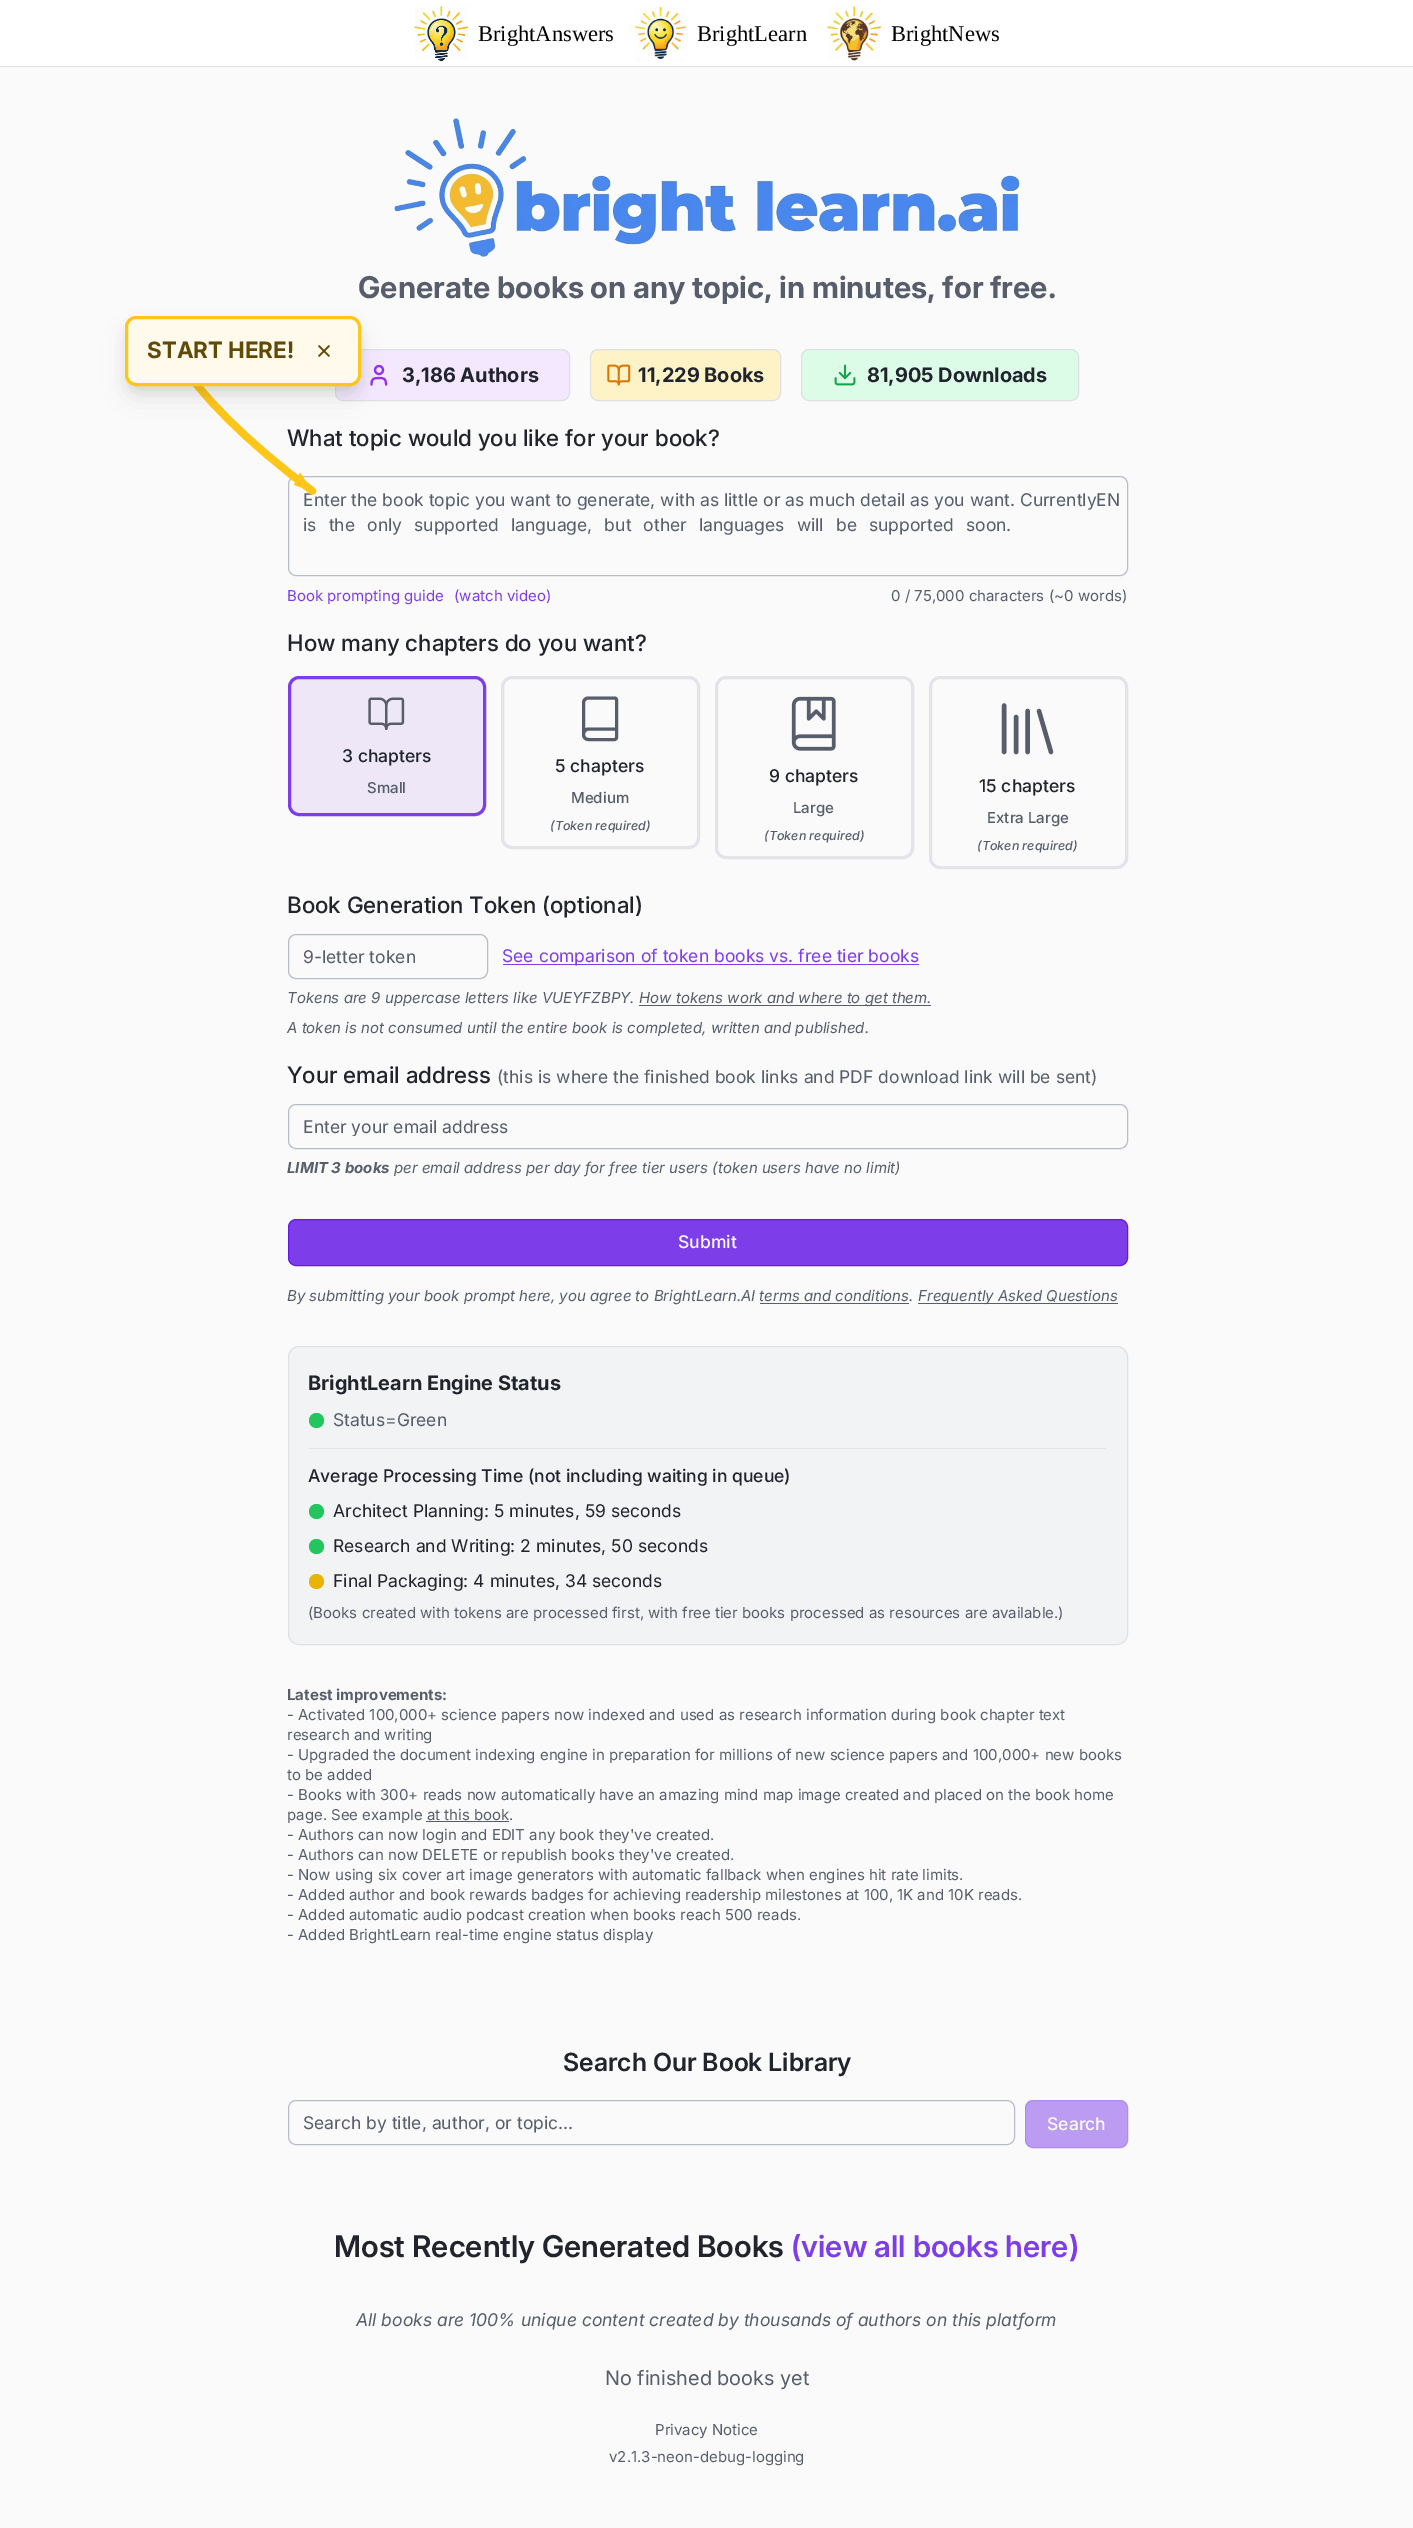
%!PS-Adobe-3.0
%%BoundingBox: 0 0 1413 2528
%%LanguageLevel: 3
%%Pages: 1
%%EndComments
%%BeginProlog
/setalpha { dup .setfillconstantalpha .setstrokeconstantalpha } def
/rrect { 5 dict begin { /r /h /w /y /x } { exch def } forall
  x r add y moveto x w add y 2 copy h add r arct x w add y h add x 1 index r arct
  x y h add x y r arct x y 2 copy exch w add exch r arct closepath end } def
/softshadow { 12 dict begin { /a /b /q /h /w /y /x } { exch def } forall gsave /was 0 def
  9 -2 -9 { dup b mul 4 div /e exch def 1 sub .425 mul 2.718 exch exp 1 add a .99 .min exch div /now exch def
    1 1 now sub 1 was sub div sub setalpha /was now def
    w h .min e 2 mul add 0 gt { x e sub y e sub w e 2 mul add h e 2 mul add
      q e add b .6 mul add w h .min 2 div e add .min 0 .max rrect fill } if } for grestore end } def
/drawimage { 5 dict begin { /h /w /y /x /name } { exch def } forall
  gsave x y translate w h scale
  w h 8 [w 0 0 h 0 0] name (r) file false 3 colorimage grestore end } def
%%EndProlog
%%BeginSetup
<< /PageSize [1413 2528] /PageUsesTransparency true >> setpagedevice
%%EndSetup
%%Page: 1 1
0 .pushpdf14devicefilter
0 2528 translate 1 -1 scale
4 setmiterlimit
0.98 setgray
0 0 1413 2528 rectfill
1 setgray
0 0 1413 66 rectfill
0.871 0.878 0.89 setrgbcolor
0 66 1413 1 rectfill
(images/1.raw) 414 5 55 57 drawimage
(images/2.raw) 635 6 52 55 drawimage
(images/3.raw) 827 6 55 55 drawimage
(images/4.raw) 394 118 626 139 drawimage
0.722 0.741 0.78 setrgbcolor
288.5 476.5 839 99 7.5 rrect stroke
0.953 0.91 1 setrgbcolor
335.5 349.5 234 51 7.5 rrect gsave fill grestore
0.871 0.878 0.89 setrgbcolor
stroke
0.576 0.2 0.918 setrgbcolor
2.1 setlinewidth
1 setlinecap
1 setlinejoin
newpath 386 384.5 moveto 386 378.5 384 378 379 378 curveto 373.5 378 371.5 378.5 371.5 384.5 curveto stroke
0 setlinecap
0 setlinejoin
newpath 379 370 4 0 360 arc closepath stroke
0.996 0.953 0.78 setrgbcolor
590.5 349.5 190 51 7.5 rrect gsave fill grestore
0.871 0.878 0.89 setrgbcolor
1 setlinewidth
stroke
(images/5.raw) 607 364 24 22 drawimage
0.863 0.988 0.906 setrgbcolor
801.5 349.5 277 51 7.5 rrect gsave fill grestore
0.871 0.878 0.89 setrgbcolor
stroke
(images/6.raw) 834 364 22 22 drawimage
0.933 0.906 0.973 setrgbcolor
289.5 677.5 195 137 9.5 rrect gsave fill grestore
0.49 0.243 0.918 setrgbcolor
3 setlinewidth
stroke
(images/7.raw) 368 697 37 33 drawimage
0.886 0.894 0.914 setrgbcolor
502.5 677.5 196 170 9.5 rrect stroke
0.341 0.365 0.42 setrgbcolor
3.1 setlinewidth
1 setlinecap
1 setlinejoin
newpath 583.5 734.5 moveto 583.5 703 lineto 583.5 700 585.5 698 588.5 698 curveto 614.5 698 lineto 615.5 698 616.5 699 616.5 700 curveto 616.5 737.5 lineto 616.5 738.5 615.5 739.5 614.5 739.5 curveto 588.5 739.5 lineto 585.5 739.5 583.5 737.5 583.5 734.5 curveto 583.5 731.5 585.5 729 588.5 729 curveto 616.5 729 lineto stroke
0.886 0.894 0.914 setrgbcolor
3 setlinewidth
0 setlinecap
0 setlinejoin
716.5 677.5 196 180 9.5 rrect stroke
(images/8.raw) 791 696 45 55 drawimage
930.5 677.5 196 190 9.5 rrect stroke
0.341 0.365 0.42 setrgbcolor
4.4 setlinewidth
1 setlinecap
1 setlinejoin
newpath 1039 711 moveto 1051 752 lineto 1027.5 711 moveto 1027.5 752 lineto 1016 717 moveto 1016 752 lineto 1004 705.5 moveto 1004 752 lineto stroke
0.722 0.741 0.78 setrgbcolor
1 setlinewidth
0 setlinecap
0 setlinejoin
288.5 934.5 199 44 7.5 rrect stroke
0.49 0.243 0.918 setrgbcolor
503 964 416 1 rectfill
0.341 0.365 0.42 setrgbcolor
639 1005 292 1 rectfill
0.722 0.741 0.78 setrgbcolor
288.5 1104.5 839 44 7.5 rrect stroke
0.49 0.243 0.918 setrgbcolor
288.5 1219.5 839 46 7.5 rrect gsave fill grestore
0.392 0.102 0.902 setrgbcolor
stroke
0.341 0.365 0.42 setrgbcolor
918 1303 200 1 rectfill
760 1303 149 1 rectfill
0.949 0.953 0.957 setrgbcolor
288.5 1346.5 839 298 10.5 rrect gsave fill grestore
0.871 0.878 0.89 setrgbcolor
stroke
0.133 0.773 0.369 setrgbcolor
newpath 316.5 1420.5 7.5 0 360 arc closepath fill
0.886 0.894 0.914 setrgbcolor
309 1448 797 1 rectfill
0.133 0.773 0.369 setrgbcolor
newpath 316.5 1511.5 7.5 0 360 arc closepath fill
newpath 316.5 1546.5 7.5 0 360 arc closepath fill
0.918 0.702 0.031 setrgbcolor
newpath 316.5 1581.5 7.5 0 360 arc closepath fill
0.341 0.365 0.42 setrgbcolor
426 1821 83 1 rectfill
0.722 0.741 0.78 setrgbcolor
288.5 2100.5 726 44 7.5 rrect stroke
0.737 0.612 0.949 setrgbcolor
1025.5 2100.5 102 47 7.5 rrect gsave fill grestore
0.686 0.541 0.941 setrgbcolor
stroke
/LiberationSerif-Regular [22.5 0 0 -22.5 0 0] selectfont
0 setgray
478 41 moveto (BrightAnswers) show
697 41 moveto (BrightLearn) show
891 41 moveto (BrightNews) show
/Inter-Bold [30 0 0 -30 0 0] selectfont
0.341 0.365 0.42 setrgbcolor
358 298 moveto (Generate books on any topic, in minutes, for free.) show
/Inter-Regular [17.5 0 0 -17.5 0 0] selectfont
303 506 moveto (Enter the book topic you want to generate, with as little or as much detail as you want. CurrentlyEN) show
303 531 moveto 7.25 0 32 (is the only supported language, but other languages will be supported soon.) widthshow
/Inter-Regular [15 0 0 -15 0 0] selectfont
0.49 0.243 0.918 setrgbcolor
287 601 moveto (Book prompting guide) show
454 601 moveto (\(watch video\)) show
0.341 0.365 0.42 setrgbcolor
891 601 moveto (0 / 75,000 characters \(~0 words\)) show
/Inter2-Bold [20 0 0 -20 0 0] selectfont
0.129 0.141 0.173 setrgbcolor
402 382 moveto (3,186 Authors) show
638 382 moveto (11,229 Books) show
867 382 moveto (81,905 Downloads) show
/Inter-Medium [22.5 0 0 -22.5 0 0] selectfont
287 446 moveto (What topic would you like for your book?) show
1 0.776 0.102 setrgbcolor
7.5 setlinewidth
1 setlinecap
newpath 175 354 moveto 200 395.5 246 441 312.5 491 curveto stroke
0.067 0.075 0.09 setrgbcolor
130 334 226 60 6 12.5 0.12 softshadow
128 324 231 65 9 5 0.08 softshadow
1 0.98 0.922 setrgbcolor
126.5 317.5 233 67 9.5 rrect gsave fill grestore
1 0.776 0.102 setrgbcolor
3 setlinewidth
0 setlinecap
stroke
0.38 0.29 0.02 setrgbcolor
1.7 setlinewidth
1 setlinecap
1 setlinejoin
newpath 329 346 moveto 319 356 lineto 319 346 moveto 329 356 lineto stroke
/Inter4-Bold [22.5 0 0 -22.5 0 0] selectfont
147 358 moveto (START HERE!) show
1 0.776 0.102 setrgbcolor
newpath 312.5 491 moveto 294 485 lineto 300 472.5 lineto closepath fill
/Inter-Medium [22.5 0 0 -22.5 0 0] selectfont
0.129 0.141 0.173 setrgbcolor
287 651 moveto (How many chapters do you want?) show
/Inter2-Medium [17.5 0 0 -17.5 0 0] selectfont
342 762 moveto (3 chapters) show
/Inter2-Medium [15 0 0 -15 0 0] selectfont
0.341 0.365 0.42 setrgbcolor
367 793 moveto (Small) show
/Inter2-Medium [17.5 0 0 -17.5 0 0] selectfont
0.129 0.141 0.173 setrgbcolor
555 772 moveto (5 chapters) show
/Inter2-Medium [15 0 0 -15 0 0] selectfont
0.341 0.365 0.42 setrgbcolor
571 803 moveto (Medium) show
/Inter-MediumItalic [12.5 0 0 -12.5 0 0] selectfont
550 830 moveto (\(Token required\)) show
/Inter2-Medium [17.5 0 0 -17.5 0 0] selectfont
0.129 0.141 0.173 setrgbcolor
769 782 moveto (9 chapters) show
/Inter2-Medium [15 0 0 -15 0 0] selectfont
0.341 0.365 0.42 setrgbcolor
793 813 moveto (Large) show
/Inter-MediumItalic [12.5 0 0 -12.5 0 0] selectfont
764 840 moveto (\(Token required\)) show
/Inter2-Medium [17.5 0 0 -17.5 0 0] selectfont
0.129 0.141 0.173 setrgbcolor
979 792 moveto (15 chapters) show
/Inter2-Medium [15 0 0 -15 0 0] selectfont
0.341 0.365 0.42 setrgbcolor
987 823 moveto (Extra Large) show
/Inter-MediumItalic [12.5 0 0 -12.5 0 0] selectfont
977 850 moveto (\(Token required\)) show
/Inter-Medium [22.5 0 0 -22.5 0 0] selectfont
0.129 0.141 0.173 setrgbcolor
287 913 moveto (Book Generation Token \(optional\)) show
/Inter-Regular [17.5 0 0 -17.5 0 0] selectfont
0.341 0.365 0.42 setrgbcolor
303 963 moveto (9-letter token) show
0.49 0.243 0.918 setrgbcolor
502 962 moveto (See comparison of token books vs. free tier books) show
/Inter-Italic [15 0 0 -15 0 0] selectfont
0.341 0.365 0.42 setrgbcolor
287 1003 moveto (Tokens are 9 uppercase letters like VUEYFZBPY.) show
639 1003 moveto (How tokens work and where to get them.) show
287 1033 moveto (A token is not consumed until the entire book is completed, written and published.) show
/Inter-Medium [22.5 0 0 -22.5 0 0] selectfont
0.129 0.141 0.173 setrgbcolor
287 1083 moveto (Your email address) show
/Inter-Regular [17.5 0 0 -17.5 0 0] selectfont
0.341 0.365 0.42 setrgbcolor
497 1083 moveto (\(this is where the finished book links and PDF download link will be sent\)) show
gsave
304 1115 807 21 rectclip
303 1133 moveto (Enter your email address) show
grestore
/Inter-BoldItalic [15 0 0 -15 0 0] selectfont
287 1173 moveto (LIMIT 3 books) show
/Inter-Italic [15 0 0 -15 0 0] selectfont
394 1173 moveto (per email address per day for free tier users \(token users have no limit\)) show
/Inter2-Medium [17.5 0 0 -17.5 0 0] selectfont
0.98 setgray
678 1248 moveto (Submit) show
/Inter-Italic [15 0 0 -15 0 0] selectfont
0.341 0.365 0.42 setrgbcolor
287 1301 moveto (By submitting your book prompt here, you agree to BrightLearn.AI terms and conditions) show
909 1301 moveto (.) show
918 1301 moveto (Frequently Asked Questions) show
/Inter2-Bold [20 0 0 -20 0 0] selectfont
0.129 0.141 0.173 setrgbcolor
308 1390 moveto (BrightLearn Engine Status) show
/Inter-Regular [17.5 0 0 -17.5 0 0] selectfont
0.341 0.365 0.42 setrgbcolor
333 1426 moveto (Status=Green) show
/Inter2-Medium [17.5 0 0 -17.5 0 0] selectfont
0.129 0.141 0.173 setrgbcolor
308 1482 moveto (Average Processing Time \(not including waiting in queue\)) show
/Inter-Regular [17.5 0 0 -17.5 0 0] selectfont
333 1517 moveto (Architect Planning: 5 minutes, 59 seconds) show
333 1552 moveto (Research and Writing: 2 minutes, 50 seconds) show
333 1587 moveto (Final Packaging: 4 minutes, 34 seconds) show
/Inter-Regular [15 0 0 -15 0 0] selectfont
0.341 0.365 0.42 setrgbcolor
308 1618 moveto (\(Books created with tokens are processed first, with free tier books processed as resources are available.\)) show
/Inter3-Bold [15 0 0 -15 0 0] selectfont
287 1700 moveto (Latest improvements:) show
/Inter-Regular [15 0 0 -15 0 0] selectfont
287 1720 moveto (- Activated 100,000+ science papers now indexed and used as research information during book chapter text) show
287 1740 moveto (research and writing) show
287 1760 moveto (- Upgraded the document indexing engine in preparation for millions of new science papers and 100,000+ new books) show
287 1780 moveto (to be added) show
287 1800 moveto (- Books with 300+ reads now automatically have an amazing mind map image created and placed on the book home) show
287 1820 moveto (page. See example at this book.) show
287 1840 moveto (- Authors can now login and EDIT any book they've created.) show
287 1860 moveto (- Authors can now DELETE or republish books they've created.) show
287 1880 moveto (- Now using six cover art image generators with automatic fallback when engines hit rate limits.) show
287 1900 moveto (- Added author and book rewards badges for achieving readership milestones at 100, 1K and 10K reads.) show
287 1920 moveto (- Added automatic audio podcast creation when books reach 500 reads.) show
287 1940 moveto (- Added BrightLearn real-time engine status display) show
/Inter-SemiBold [25 0 0 -25 0 0] selectfont
0.129 0.141 0.173 setrgbcolor
563 2071 moveto (Search Our Book Library) show
/Inter-Regular [17.5 0 0 -17.5 0 0] selectfont
0.341 0.365 0.42 setrgbcolor
303 2129 moveto (Search by title, author, or topic...) show
/Inter2-Medium [17.5 0 0 -17.5 0 0] selectfont
0.98 setgray
1047 2130 moveto (Search) show
/Inter2-SemiBold [30 0 0 -30 0 0] selectfont
0.129 0.141 0.173 setrgbcolor
334 2257 moveto (Most Recently Generated Books) show
0.49 0.243 0.918 setrgbcolor
791 2257 moveto (\(view all books here\)) show
/Inter-Italic [17.5 0 0 -17.5 0 0] selectfont
0.341 0.365 0.42 setrgbcolor
356 2326 moveto (All books are 100% unique content created by thousands of authors on this platform) show
/Inter2-Regular [20 0 0 -20 0 0] selectfont
605 2385 moveto (No finished books yet) show
/Inter-Regular [15 0 0 -15 0 0] selectfont
655 2435 moveto (Privacy Notice) show
609 2462 moveto (v2.1.3-neon-debug-logging) show
.poppdf14devicefilter showpage
%%EOF
